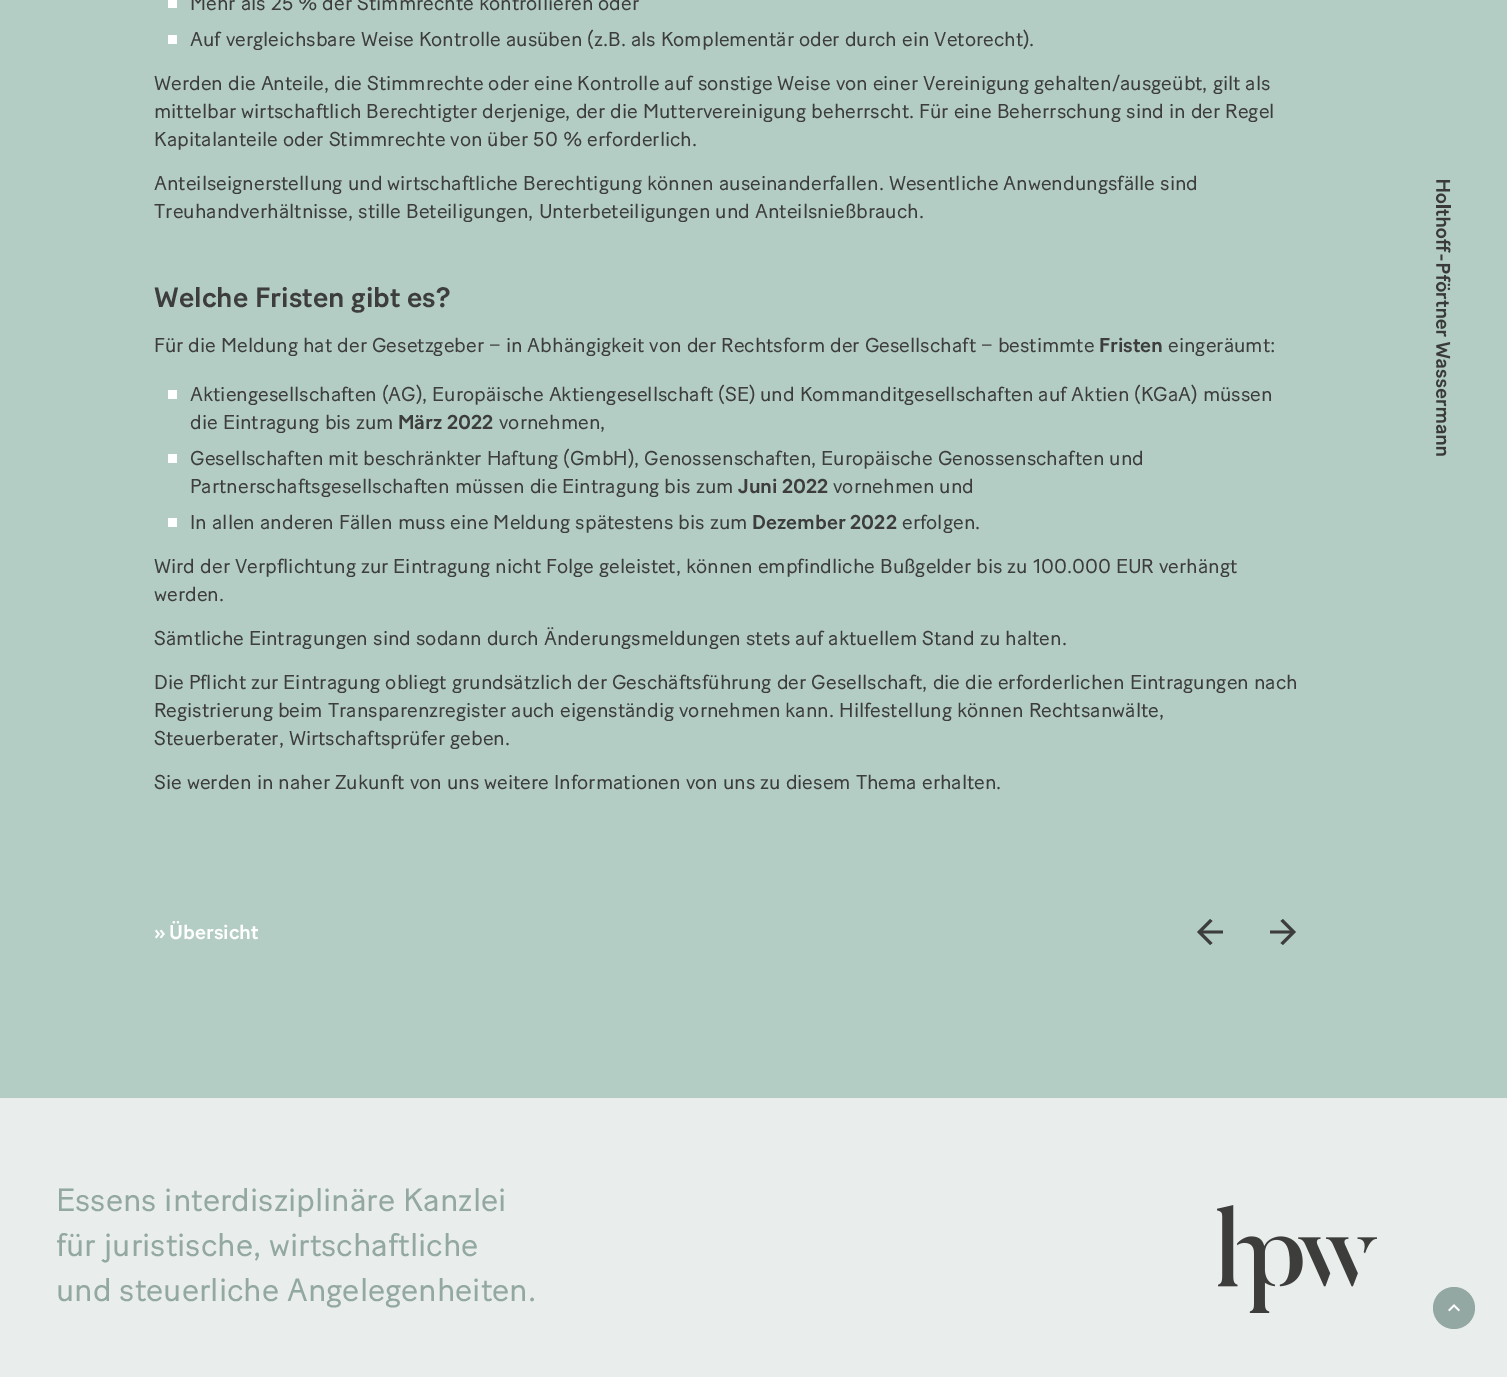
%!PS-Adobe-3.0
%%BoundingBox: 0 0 1507 1377
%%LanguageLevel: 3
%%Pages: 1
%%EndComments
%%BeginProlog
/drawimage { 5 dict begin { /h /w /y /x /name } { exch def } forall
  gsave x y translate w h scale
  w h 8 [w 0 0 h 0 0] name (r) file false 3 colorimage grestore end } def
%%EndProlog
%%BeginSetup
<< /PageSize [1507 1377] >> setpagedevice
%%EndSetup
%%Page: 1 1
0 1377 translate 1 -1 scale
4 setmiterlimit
0.702 0.804 0.773 setrgbcolor
0 0 1507 1377 rectfill
1 setgray
168 0 9 8 rectfill
168 35 9 9 rectfill
168 390 9 9 rectfill
168 454 9 9 rectfill
168 518 9 9 rectfill
0.239 0.243 0.235 setrgbcolor
newpath 1223 930.5 moveto 1223 933.5 lineto 1203 933.5 lineto 1212.5 943 lineto 1210 945 lineto 1197 932 lineto 1210 919 lineto 1212.5 921 lineto 1203 930.5 lineto closepath fill
newpath 1270 930.5 moveto 1270 933.5 lineto 1290 933.5 lineto 1280.5 943 lineto 1283 945 lineto 1296 932 lineto 1283 919 lineto 1280.5 921 lineto 1290 930.5 lineto closepath fill
(images/1.raw) 1436 180 15 276 drawimage
0.914 0.933 0.925 setrgbcolor
0 1098 1507 279 rectfill
(images/2.raw) 1217 1205 160 108 drawimage
0.576 0.659 0.635 setrgbcolor
newpath 1454 1308 21 0 360 arc closepath fill
(images/3.raw) 1448 1304 12 8 drawimage
/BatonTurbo-Regular [20 0 0 -20 0 0] selectfont
0.239 0.243 0.235 setrgbcolor
190 10 moveto (Mehr als 25 % der Stimmrechte kontrollieren oder) show
190 46 moveto (Auf vergleichsbare Weise Kontrolle ausüben \(z.B. als Komplementär oder durch ein Vetorecht\).) show
154 90 moveto (Werden die Anteile, die Stimmrechte oder eine Kontrolle auf sonstige Weise von einer Vereinigung gehalten/ausgeübt, gilt als) show
154 118 moveto (mittelbar wirtschaftlich Berechtigter derjenige, der die Muttervereinigung beherrscht. Für eine Beherrschung sind in der Regel) show
154 146 moveto (Kapitalanteile oder Stimmrechte von über 50 % erforderlich.) show
154 190 moveto (Anteilseignerstellung und wirtschaftliche Berechtigung können auseinanderfallen. Wesentliche Anwendungsfälle sind) show
154 218 moveto (Treuhandverhältnisse, stille Beteiligungen, Unterbeteiligungen und Anteilsnießbrauch.) show
/BatonTurbo-Medium [28 0 0 -28 0 0] selectfont
154 307 moveto (Welche Fristen gibt es?) show
/BatonTurbo-Regular [20 0 0 -20 0 0] selectfont
154 352 moveto (Für die Meldung hat der Gesetzgeber − in Abhängigkeit von der Rechtsform der Gesellschaft − bestimmte) show
/BatonTurbo-Medium [20 0 0 -20 0 0] selectfont
1099 352 moveto (Fristen) show
/BatonTurbo-Regular [20 0 0 -20 0 0] selectfont
1168 352 moveto (eingeräumt:) show
190 401 moveto (Aktiengesellschaften \(AG\), Europäische Aktiengesellschaft \(SE\) und Kommanditgesellschaften auf Aktien \(KGaA\) müssen) show
190 429 moveto (die Eintragung bis zum) show
/BatonTurbo-Medium [20 0 0 -20 0 0] selectfont
398 429 moveto (März 2022) show
/BatonTurbo-Regular [20 0 0 -20 0 0] selectfont
499 429 moveto (vornehmen,) show
190 465 moveto (Gesellschaften mit beschränkter Haftung \(GmbH\), Genossenschaften, Europäische Genossenschaften und) show
190 493 moveto (Partnerschaftsgesellschaften müssen die Eintragung bis zum) show
/BatonTurbo-Medium [20 0 0 -20 0 0] selectfont
738 493 moveto (Juni 2022) show
/BatonTurbo-Regular [20 0 0 -20 0 0] selectfont
833 493 moveto (vornehmen und) show
190 529 moveto (In allen anderen Fällen muss eine Meldung spätestens bis zum) show
/BatonTurbo-Medium [20 0 0 -20 0 0] selectfont
752 529 moveto (Dezember 2022) show
/BatonTurbo-Regular [20 0 0 -20 0 0] selectfont
902 529 moveto (erfolgen.) show
154 573 moveto (Wird der Verpflichtung zur Eintragung nicht Folge geleistet, können empfindliche Bußgelder bis zu 100.000 EUR verhängt) show
154 601 moveto (werden.) show
154 645 moveto (Sämtliche Eintragungen sind sodann durch Änderungsmeldungen stets auf aktuellem Stand zu halten.) show
154 689 moveto (Die Pflicht zur Eintragung obliegt grundsätzlich der Geschäftsführung der Gesellschaft, die die erforderlichen Eintragungen nach) show
154 717 moveto (Registrierung beim Transparenzregister auch eigenständig vornehmen kann. Hilfestellung können Rechtsanwälte,) show
154 745 moveto (Steuerberater, Wirtschaftsprüfer geben.) show
154 789 moveto (Sie werden in naher Zukunft von uns weitere Informationen von uns zu diesem Thema erhalten.) show
/BatonTurbo-Medium [20 0 0 -20 0 0] selectfont
1 setgray
154 939 moveto (») show
169 939 moveto (Übersicht) show
/BatonTurbo-Regular [32 0 0 -32 0 0] selectfont
0.576 0.659 0.635 setrgbcolor
56 1211 moveto (Essens interdisziplinäre Kanzlei) show
56 1256 moveto (für juristische, wirtschaftliche) show
56 1301 moveto (und steuerliche Angelegenheiten.) show
showpage
%%EOF
